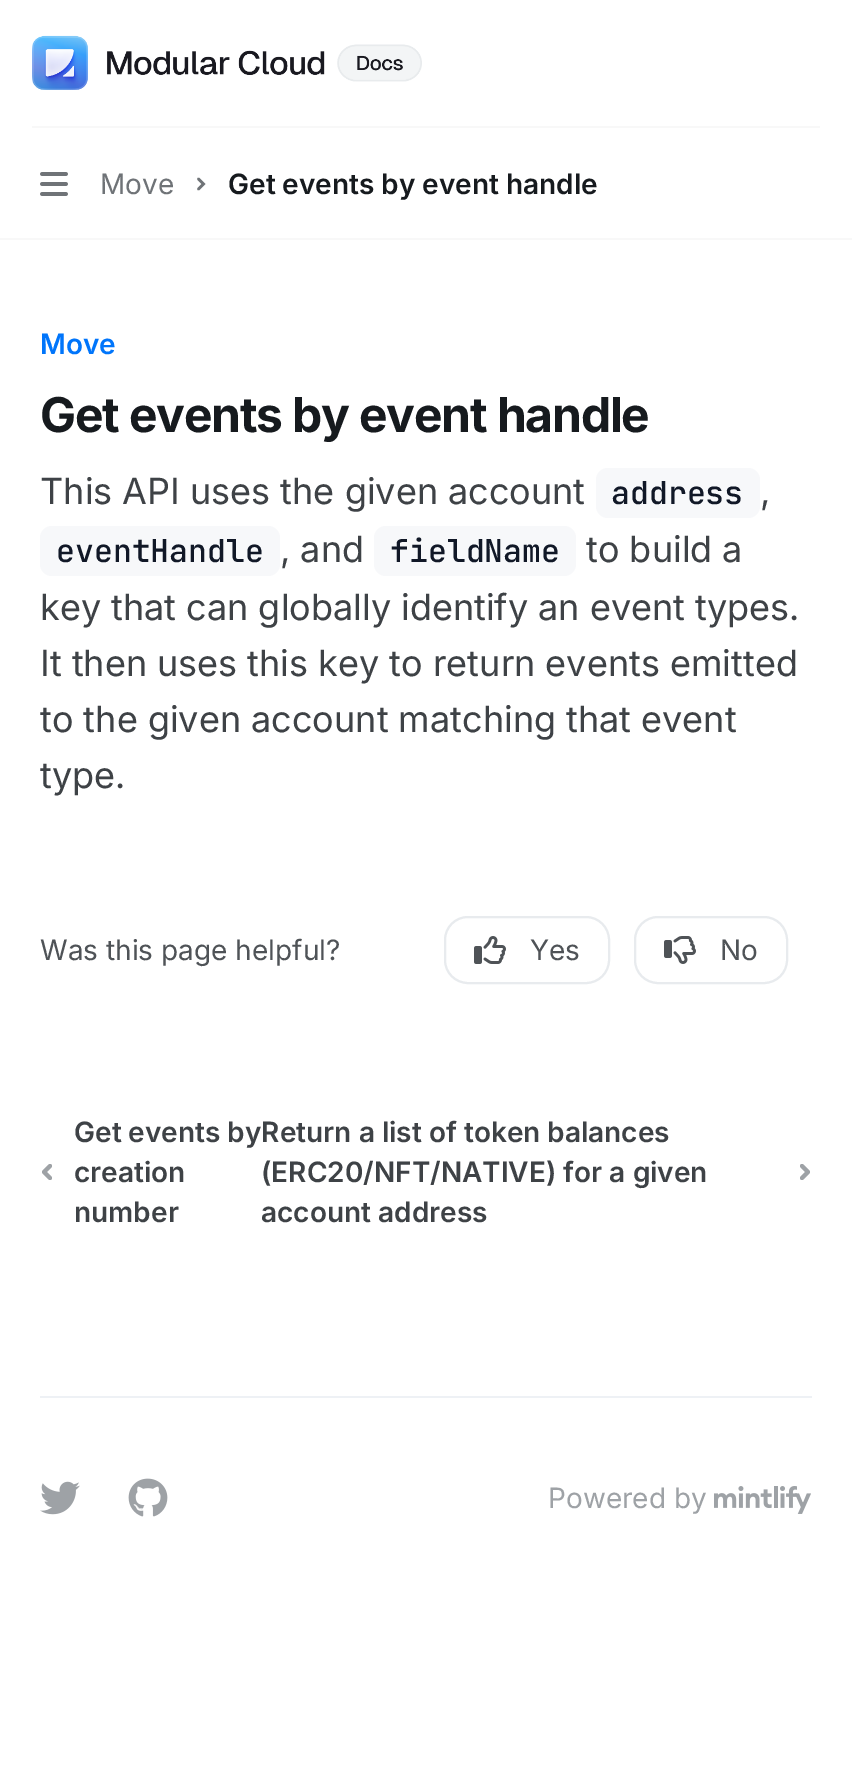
%!PS-Adobe-3.0
%%BoundingBox: 0 0 852 1772
%%LanguageLevel: 3
%%Pages: 1
%%EndComments
%%BeginProlog
/rrect { 5 dict begin { /r /h /w /y /x } { exch def } forall
  x r add y moveto x w add y 2 copy h add r arct x w add y h add x 1 index r arct
  x y h add x y r arct x y 2 copy exch w add exch r arct closepath end } def
/drawimage { 5 dict begin { /h /w /y /x /name } { exch def } forall
  gsave x y translate w h scale
  w h 8 [w 0 0 h 0 0] name (r) file false 3 colorimage grestore end } def
%%EndProlog
%%BeginSetup
<< /PageSize [852 1772] >> setpagedevice
%%EndSetup
%%Page: 1 1
0 1772 translate 1 -1 scale
4 setmiterlimit
1 setgray
0 0 852 1772 rectfill
0.973 setgray
32 126 788 2 rectfill
(images/1.raw) 32 35 390 55 drawimage
(images/2.raw) 40 172 28 24 drawimage
0.435 0.451 0.467 setrgbcolor
2.5 setlinewidth
1 setlinecap
newpath 198.5 179 moveto 203.5 184 lineto 198.5 189 lineto stroke
0.973 setgray
0 238 852 2 rectfill
0.969 0.973 0.98 setrgbcolor
596 468 164 50 12 rrect fill
40 526 240 50 12 rrect fill
374 526 202 50 12 rrect fill
0.91 0.922 0.933 setrgbcolor
2 setlinewidth
0 setlinecap
445 917 164 66 23 rrect stroke
(images/3.raw) 474 936 32 28 drawimage
635 917 152 66 23 rrect stroke
(images/4.raw) 664 936 32 28 drawimage
0.62 0.635 0.651 setrgbcolor
4 setlinewidth
1 setlinecap
1 setlinejoin
newpath 50 1166 moveto 44 1172 lineto 50 1178 lineto stroke
newpath 802 1178 moveto 808 1172 lineto 802 1166 lineto stroke
0.933 0.945 0.961 setrgbcolor
40 1396 772 2 rectfill
(images/5.raw) 40 1481 40 34 drawimage
(images/6.raw) 128 1478 40 39 drawimage
(images/7.raw) 714 1486 97 28 drawimage
/Inter-Regular [28 0 0 -28 0 0] selectfont
0.435 0.451 0.467 setrgbcolor
100 194 moveto (Move) show
/Inter-SemiBold [28 0 0 -28 0 0] selectfont
0.086 0.102 0.118 setrgbcolor
228 194 moveto (Get events by event handle) show
0 0.459 0.984 setrgbcolor
40 354 moveto (Move) show
/Inter-Bold [48 0 0 -48 0 0] selectfont
0.086 0.102 0.118 setrgbcolor
40 432 moveto -1.2 0 (Get events by event handle) ashow
/Inter-Regular [36 0 0 -36 0 0] selectfont
0.243 0.259 0.275 setrgbcolor
40 504 moveto (This API uses the given account) show
/JetBrainsMono-Medium [31.5 0 0 -31.5 0 0] selectfont
0.067 0.094 0.153 setrgbcolor
611 504 moveto (address) show
/Inter-Regular [36 0 0 -36 0 0] selectfont
0.243 0.259 0.275 setrgbcolor
760 504 moveto (,) show
/JetBrainsMono-Medium [31.5 0 0 -31.5 0 0] selectfont
0.067 0.094 0.153 setrgbcolor
56 562 moveto (eventHandle) show
/Inter-Regular [36 0 0 -36 0 0] selectfont
0.243 0.259 0.275 setrgbcolor
280 562 moveto (, and) show
/JetBrainsMono-Medium [31.5 0 0 -31.5 0 0] selectfont
0.067 0.094 0.153 setrgbcolor
390 562 moveto (fieldName) show
/Inter-Regular [36 0 0 -36 0 0] selectfont
0.243 0.259 0.275 setrgbcolor
586 562 moveto (to build a) show
40 620 moveto (key that can globally identify an event types.) show
40 676 moveto (It then uses this key to return events emitted) show
40 732 moveto (to the given account matching that event) show
40 788 moveto (type.) show
/Inter-Regular [28 0 0 -28 0 0] selectfont
0.31 0.325 0.341 setrgbcolor
40 960 moveto (Was this page helpful?) show
530 960 moveto (Yes) show
720 960 moveto (No) show
/Inter-SemiBold [28 0 0 -28 0 0] selectfont
0.243 0.259 0.275 setrgbcolor
74 1142 moveto (Get events byReturn a list of token balances) show
74 1182 moveto (creation) show
74 1222 moveto (number) show
261 1182 moveto (\(ERC20/NFT/NATIVE\) for a given) show
261 1222 moveto (account address) show
/Inter-Regular [28 0 0 -28 0 0] selectfont
0.62 0.635 0.651 setrgbcolor
548 1508 moveto (Powered by) show
showpage
%%EOF
